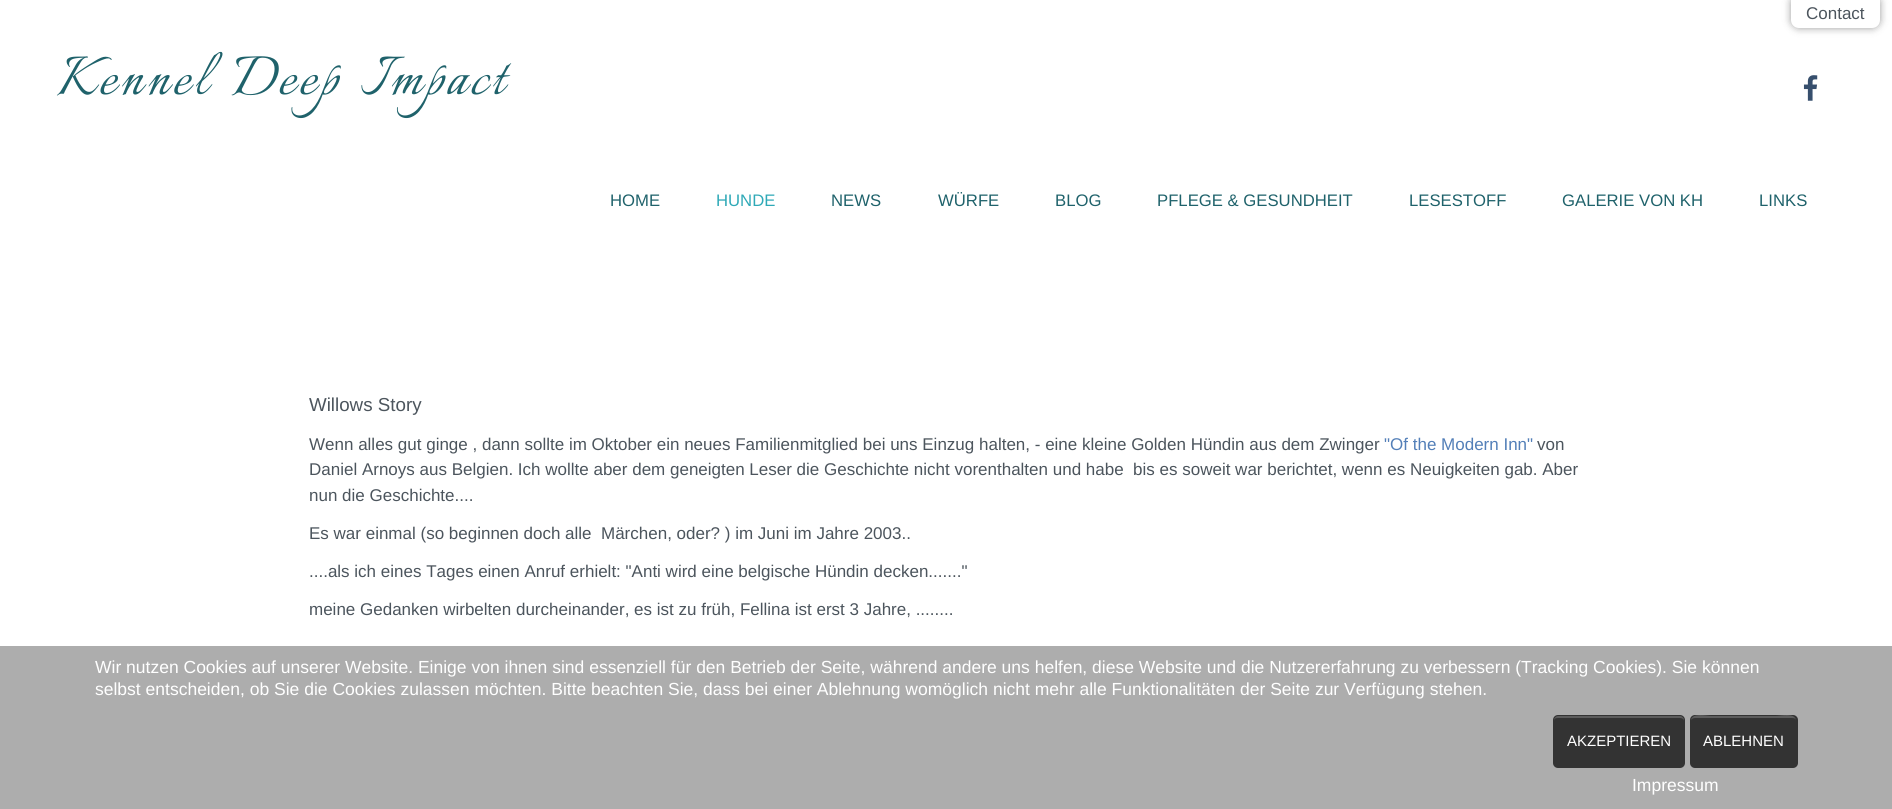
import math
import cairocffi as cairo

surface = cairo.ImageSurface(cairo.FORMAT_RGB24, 1892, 809)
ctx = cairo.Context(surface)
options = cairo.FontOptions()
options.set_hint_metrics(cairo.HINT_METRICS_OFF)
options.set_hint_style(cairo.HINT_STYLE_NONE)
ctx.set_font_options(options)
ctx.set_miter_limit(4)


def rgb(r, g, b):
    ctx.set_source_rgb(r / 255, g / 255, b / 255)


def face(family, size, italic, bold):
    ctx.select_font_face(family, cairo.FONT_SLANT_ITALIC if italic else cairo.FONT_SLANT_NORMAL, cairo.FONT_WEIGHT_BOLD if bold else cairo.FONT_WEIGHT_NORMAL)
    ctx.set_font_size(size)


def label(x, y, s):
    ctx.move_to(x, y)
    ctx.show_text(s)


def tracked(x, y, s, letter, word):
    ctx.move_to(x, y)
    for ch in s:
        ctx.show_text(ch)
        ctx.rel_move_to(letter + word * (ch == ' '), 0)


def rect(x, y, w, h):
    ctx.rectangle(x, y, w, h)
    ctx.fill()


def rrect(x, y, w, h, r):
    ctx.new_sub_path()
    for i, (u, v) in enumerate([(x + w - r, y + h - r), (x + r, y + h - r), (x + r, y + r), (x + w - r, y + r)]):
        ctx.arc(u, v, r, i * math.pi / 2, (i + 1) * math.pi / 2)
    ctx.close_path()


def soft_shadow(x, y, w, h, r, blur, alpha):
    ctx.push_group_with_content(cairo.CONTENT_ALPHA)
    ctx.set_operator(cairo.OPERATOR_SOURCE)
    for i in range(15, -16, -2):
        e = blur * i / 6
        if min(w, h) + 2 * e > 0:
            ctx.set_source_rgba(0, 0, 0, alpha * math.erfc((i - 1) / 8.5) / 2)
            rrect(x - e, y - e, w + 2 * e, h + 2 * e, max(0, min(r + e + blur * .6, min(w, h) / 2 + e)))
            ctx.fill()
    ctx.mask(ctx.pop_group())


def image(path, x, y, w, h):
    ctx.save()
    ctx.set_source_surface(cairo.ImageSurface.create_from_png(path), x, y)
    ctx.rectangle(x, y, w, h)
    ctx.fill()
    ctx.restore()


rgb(255, 255, 255)
ctx.paint()
rgb(0, 0, 0)
soft_shadow(1791, -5, 89, 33, 8, 4, 0.4)
rgb(255, 255, 255)
ctx.new_path()
ctx.move_to(1791, -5)
ctx.line_to(1880, -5)
ctx.line_to(1880, 20)
ctx.curve_to(1880, 24.5, 1876.5, 28, 1872, 28)
ctx.line_to(1799, 28)
ctx.curve_to(1794.5, 28, 1791, 24.5, 1791, 20)
ctx.close_path()
ctx.fill()
face('Liberation Sans', 17, 0, 0)
rgb(76, 85, 93)
label(1806, 19, 'Contact')
face('Italianno', 68.75, 0, 0)
rgb(31, 98, 107)
tracked(57, 94, 'Kennel Deep Impact', 3.75, 4)
image('image0.png', 1803, 75, 15, 26)
face('Liberation Sans', 16.7, 0, 0)
label(610, 206, 'HOME')
rgb(47, 169, 183)
label(716, 206, 'HUNDE')
rgb(31, 98, 107)
label(831, 206, 'NEWS')
label(938, 206, 'WÜRFE')
label(1055, 206, 'BLOG')
label(1157, 206, 'PFLEGE & GESUNDHEIT')
label(1409, 206, 'LESESTOFF')
label(1562, 206, 'GALERIE VON KH')
label(1759, 206, 'LINKS')
face('Liberation Sans', 18.75, 0, 0)
rgb(76, 85, 93)
label(309, 411, 'Willows Story')
face('Liberation Sans', 17, 0, 0)
label(309, 450, 'Wenn alles gut ginge , dann sollte im Oktober ein neues Familienmitglied bei uns Einzug halten, - eine kleine Golden Hündin aus dem Zwinger')
rgb(83, 127, 184)
label(1384, 450, '"Of the Modern Inn"')
rgb(76, 85, 93)
label(1537, 450, 'von')
label(309, 475, 'Daniel Arnoys aus Belgien. Ich wollte aber dem geneigten Leser die Geschichte nicht vorenthalten und habe  bis es soweit war berichtet, wenn es Neuigkeiten gab. Aber')
label(309, 501, 'nun die Geschichte....')
label(309, 539, 'Es war einmal (so beginnen doch alle  Märchen, oder? ) im Juni im Jahre 2003..')
label(309, 577, '....als ich eines Tages einen Anruf erhielt: "Anti wird eine belgische Hündin decken......."')
label(309, 615, 'meine Gedanken wirbelten durcheinander, es ist zu früh, Fellina ist erst 3 Jahre, ........')
rgb(173, 173, 173)
rect(0, 646, 1892, 163)
face('Liberation Sans', 17.5, 0, 0)
rgb(255, 255, 255)
label(95, 673, 'Wir nutzen Cookies auf unserer Website. Einige von ihnen sind essenziell für den Betrieb der Seite, während andere uns helfen, diese Website und die Nutzererfahrung zu verbessern (Tracking Cookies). Sie können')
label(95, 695, 'selbst entscheiden, ob Sie die Cookies zulassen möchten. Bitte beachten Sie, dass bei einer Ablehnung womöglich nicht mehr alle Funktionalitäten der Seite zur Verfügung stehen.')
rgb(51, 51, 51)
rrect(1553, 715, 132, 53, 5)
ctx.fill()
rgb(92, 92, 92)
ctx.new_path()
ctx.move_to(1558, 718)
ctx.line_to(1680, 718)
ctx.curve_to(1682, 718, 1684, 719, 1684, 721)
ctx.line_to(1684, 720)
ctx.curve_to(1684, 718, 1682, 716, 1680, 716)
ctx.line_to(1558, 716)
ctx.curve_to(1556, 716, 1554, 718, 1554, 720)
ctx.line_to(1554, 721)
ctx.curve_to(1554, 719, 1555, 718, 1558, 718)
ctx.close_path()
ctx.fill()
face('Liberation Sans', 15, 0, 0)
rgb(255, 255, 255)
label(1567, 746, 'AKZEPTIEREN')
rgb(51, 51, 51)
rrect(1690, 715, 108, 53, 5)
ctx.fill()
rgb(92, 92, 92)
ctx.new_path()
ctx.move_to(1695, 718)
ctx.line_to(1792, 718)
ctx.curve_to(1795, 718, 1796, 719, 1796, 721)
ctx.curve_to(1796, 712, 1780, 716, 1776, 716)
ctx.line_to(1711, 716)
ctx.curve_to(1707, 716, 1691, 712, 1691, 721)
ctx.curve_to(1691, 719, 1693, 718, 1695, 718)
ctx.close_path()
ctx.fill()
rgb(255, 255, 255)
label(1703, 746, 'ABLEHNEN')
face('Liberation Sans', 17.5, 0, 0)
label(1632, 791, 'Impressum')
surface.write_to_png('render.png')
